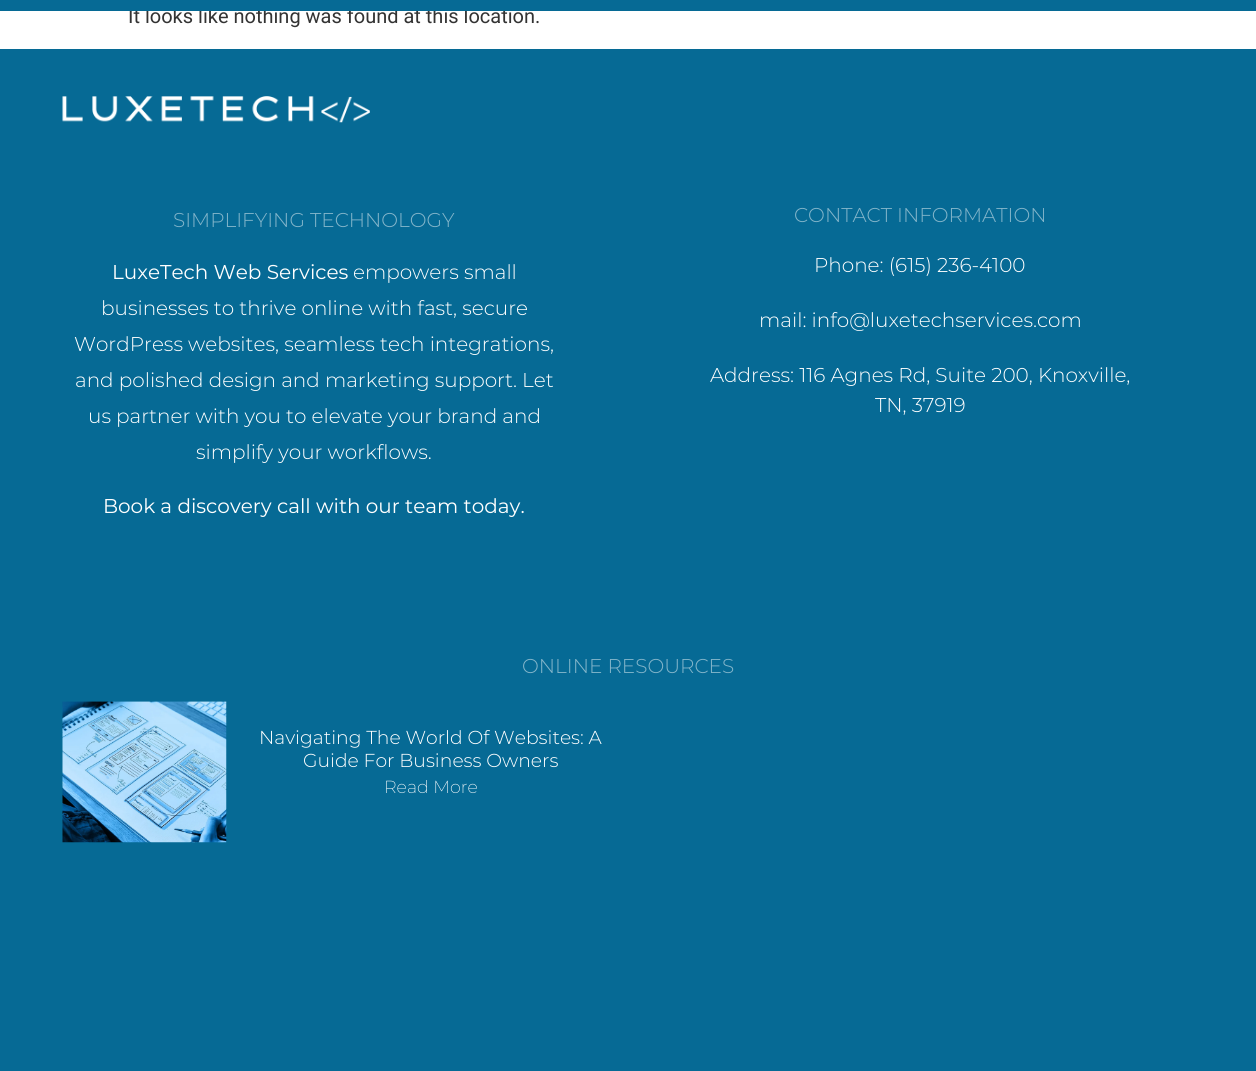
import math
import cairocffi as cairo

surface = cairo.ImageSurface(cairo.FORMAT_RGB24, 1256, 1071)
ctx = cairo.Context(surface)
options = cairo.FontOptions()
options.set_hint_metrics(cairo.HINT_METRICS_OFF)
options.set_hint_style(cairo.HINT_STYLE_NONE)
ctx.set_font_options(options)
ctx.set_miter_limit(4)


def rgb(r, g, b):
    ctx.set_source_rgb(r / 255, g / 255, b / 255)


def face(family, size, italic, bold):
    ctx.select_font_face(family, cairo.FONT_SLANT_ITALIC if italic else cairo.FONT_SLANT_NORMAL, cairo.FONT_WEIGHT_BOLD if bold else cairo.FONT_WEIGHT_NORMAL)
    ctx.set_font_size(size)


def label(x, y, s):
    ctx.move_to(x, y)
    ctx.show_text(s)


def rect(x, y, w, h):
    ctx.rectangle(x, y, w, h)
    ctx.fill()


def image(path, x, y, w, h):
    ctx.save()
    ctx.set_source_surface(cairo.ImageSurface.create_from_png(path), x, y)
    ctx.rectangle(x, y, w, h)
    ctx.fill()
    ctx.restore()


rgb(255, 255, 255)
ctx.paint()
face('Roboto', 20, 0, 0)
rgb(51, 51, 51)
label(128, 23, 'It looks like nothing was found at this location.')
rgb(6, 106, 149)
rect(0, 0, 1256, 11)
rect(0, 49, 1256, 1022)
image('image0.png', 62, 96, 308, 27)
face('Montserrat Light', 20, 0, 0)
rgb(131, 181, 202)
label(173, 227, 'SIMPLIFYING TECHNOLOGY')
face('Montserrat', 20, 0, 0)
rgb(255, 255, 255)
label(112, 279, 'LuxeTech Web Services')
face('Montserrat Light', 20, 0, 0)
label(353, 279, 'empowers small')
label(101, 315, 'businesses to thrive online with fast, secure')
label(74, 351, 'WordPress websites, seamless tech integrations,')
label(75, 387, 'and polished design and marketing support. Let')
label(88, 423, 'us partner with you to elevate your brand and')
label(196, 459, 'simplify your workflows.')
face('Montserrat', 20, 0, 0)
label(103, 513, 'Book a discovery call with our team today.')
face('Montserrat Light', 20, 0, 0)
rgb(131, 181, 202)
label(794, 222, 'CONTACT INFORMATION')
rgb(255, 255, 255)
label(814, 272, 'Phone: (615) 236-4100')
label(759, 327, 'mail: info@luxetechservices.com')
label(710, 382, 'Address: 116 Agnes Rd, Suite 200, Knoxville,')
label(875, 412, 'TN, 37919')
rgb(131, 181, 202)
label(522, 673, 'ONLINE RESOURCES')
image('image1.png', 62, 701, 165, 142)
face('Montserrat Light', 18.75, 0, 0)
rgb(255, 255, 255)
label(259, 744, 'Navigating The World Of Websites: A')
label(303, 767, 'Guide For Business Owners')
face('Montserrat ExtraLight', 17.5, 0, 0)
label(384, 793, 'Read More')
surface.write_to_png('render.png')
